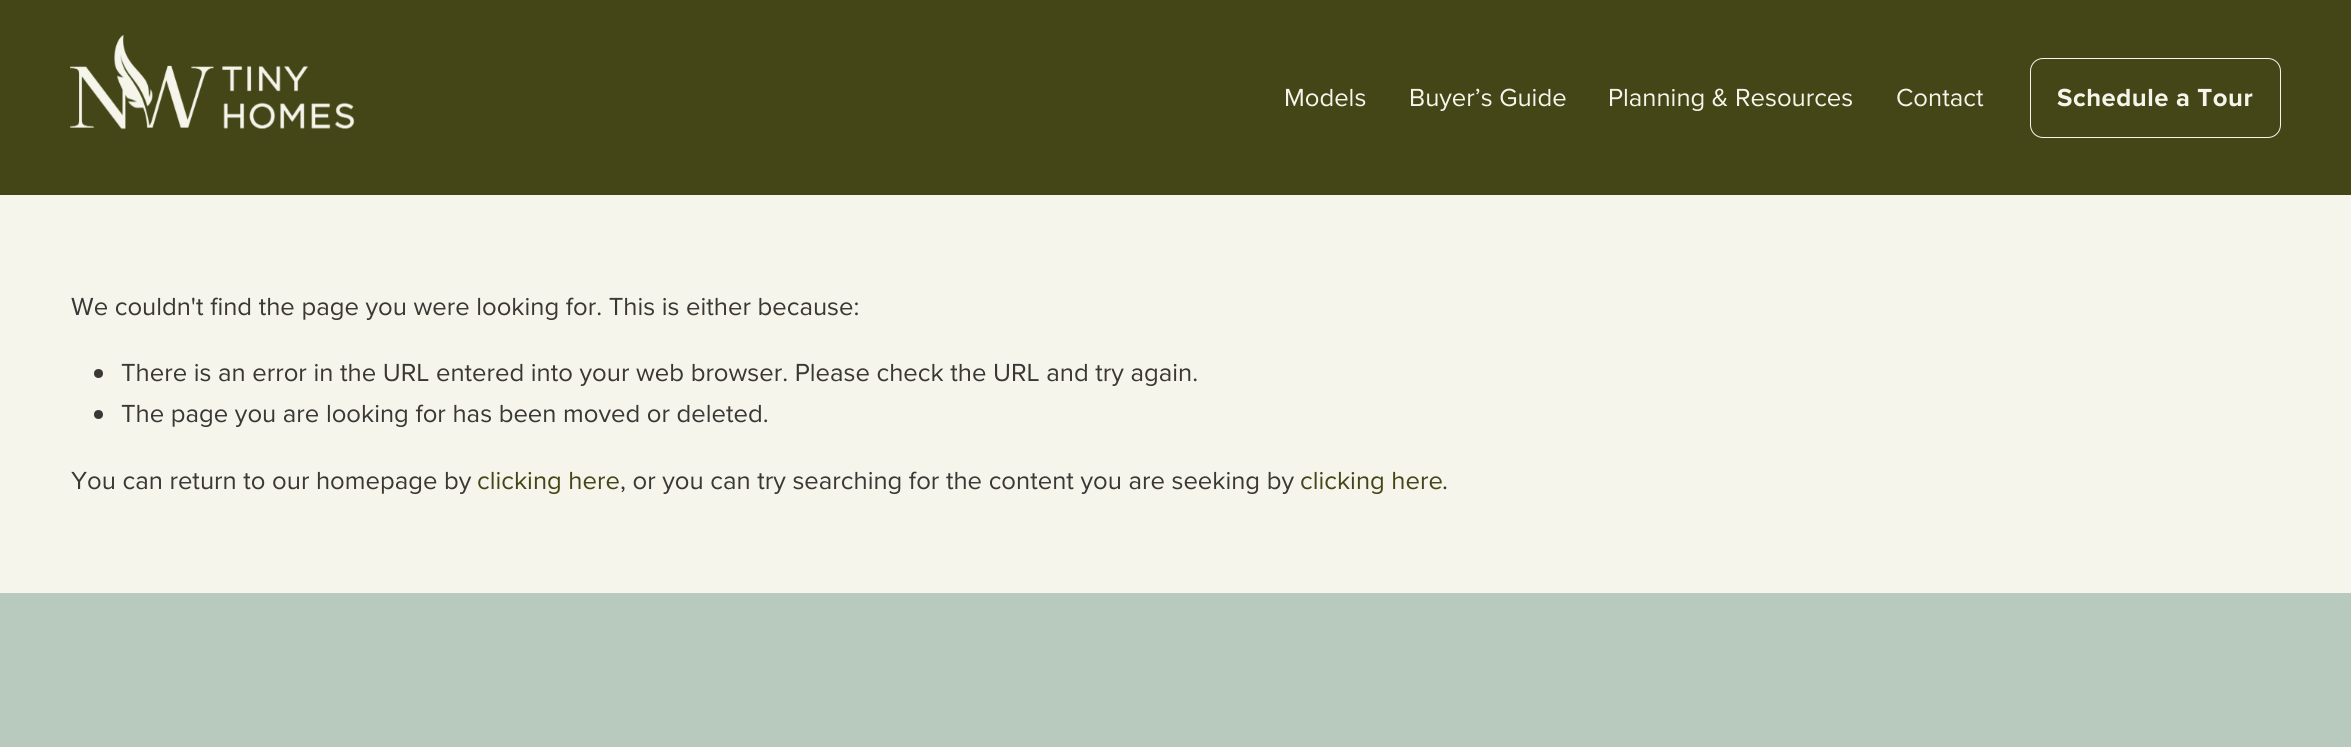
import math
import cairocffi as cairo

surface = cairo.ImageSurface(cairo.FORMAT_RGB24, 2351, 747)
ctx = cairo.Context(surface)
options = cairo.FontOptions()
options.set_hint_metrics(cairo.HINT_METRICS_OFF)
options.set_hint_style(cairo.HINT_STYLE_NONE)
ctx.set_font_options(options)
ctx.set_miter_limit(4)


def rgb(r, g, b):
    ctx.set_source_rgb(r / 255, g / 255, b / 255)


def face(family, size, italic, bold):
    ctx.select_font_face(family, cairo.FONT_SLANT_ITALIC if italic else cairo.FONT_SLANT_NORMAL, cairo.FONT_WEIGHT_BOLD if bold else cairo.FONT_WEIGHT_NORMAL)
    ctx.set_font_size(size)


def label(x, y, s):
    ctx.move_to(x, y)
    ctx.show_text(s)


def tracked(x, y, s, letter, word):
    ctx.move_to(x, y)
    for ch in s:
        ctx.show_text(ch)
        ctx.rel_move_to(letter + word * (ch == ' '), 0)


def rect(x, y, w, h):
    ctx.rectangle(x, y, w, h)
    ctx.fill()


def rrect(x, y, w, h, r):
    ctx.new_sub_path()
    for i, (u, v) in enumerate([(x + w - r, y + h - r), (x + r, y + h - r), (x + r, y + r), (x + w - r, y + r)]):
        ctx.arc(u, v, r, i * math.pi / 2, (i + 1) * math.pi / 2)
    ctx.close_path()


def image(path, x, y, w, h):
    ctx.save()
    ctx.set_source_surface(cairo.ImageSurface.create_from_png(path), x, y)
    ctx.rectangle(x, y, w, h)
    ctx.fill()
    ctx.restore()


rgb(245, 245, 235)
ctx.paint()
rgb(68, 70, 23)
rect(0, 0, 2351, 195)
image('image0.png', 70, 35, 285, 95)
face('Proxima Nova', 25.65, 0, 0)
rgb(245, 245, 235)
label(1284, 106, 'Models')
label(1409, 106, 'Buyer’s Guide')
label(1608, 106, 'Planning & Resources')
label(1896, 106, 'Contact')
rrect(2030.5, 58.5, 250, 79, 12.5)
ctx.set_line_width(1)
ctx.stroke()
face('Proxima Nova', 25.65, 0, 1)
tracked(2057, 106, 'Schedule a Tour', 0.5, 0)
face('Proxima Nova', 25.65, 0, 0)
rgb(58, 55, 52)
label(71, 315, 'We couldn\'t find the page you were looking for. This is either because:')
ctx.new_path()
ctx.arc(98.5, 373.5, 4.5, 0, 2 * math.pi)
ctx.fill()
label(121, 381, 'There is an error in the URL entered into your web browser. Please check the URL and try again.')
ctx.new_path()
ctx.arc(98.5, 414.5, 4.5, 0, 2 * math.pi)
ctx.fill()
label(121, 422, 'The page you are looking for has been moved or deleted.')
label(71, 489, 'You can return to our homepage by')
rgb(68, 70, 23)
label(477, 489, 'clicking here')
rgb(58, 55, 52)
label(620, 489, ', or you can try searching for the content you are seeking by')
rgb(68, 70, 23)
label(1300, 489, 'clicking here')
rgb(58, 55, 52)
label(1442, 489, '.')
rgb(184, 202, 190)
rect(0, 593, 2351, 154)
surface.write_to_png('render.png')
